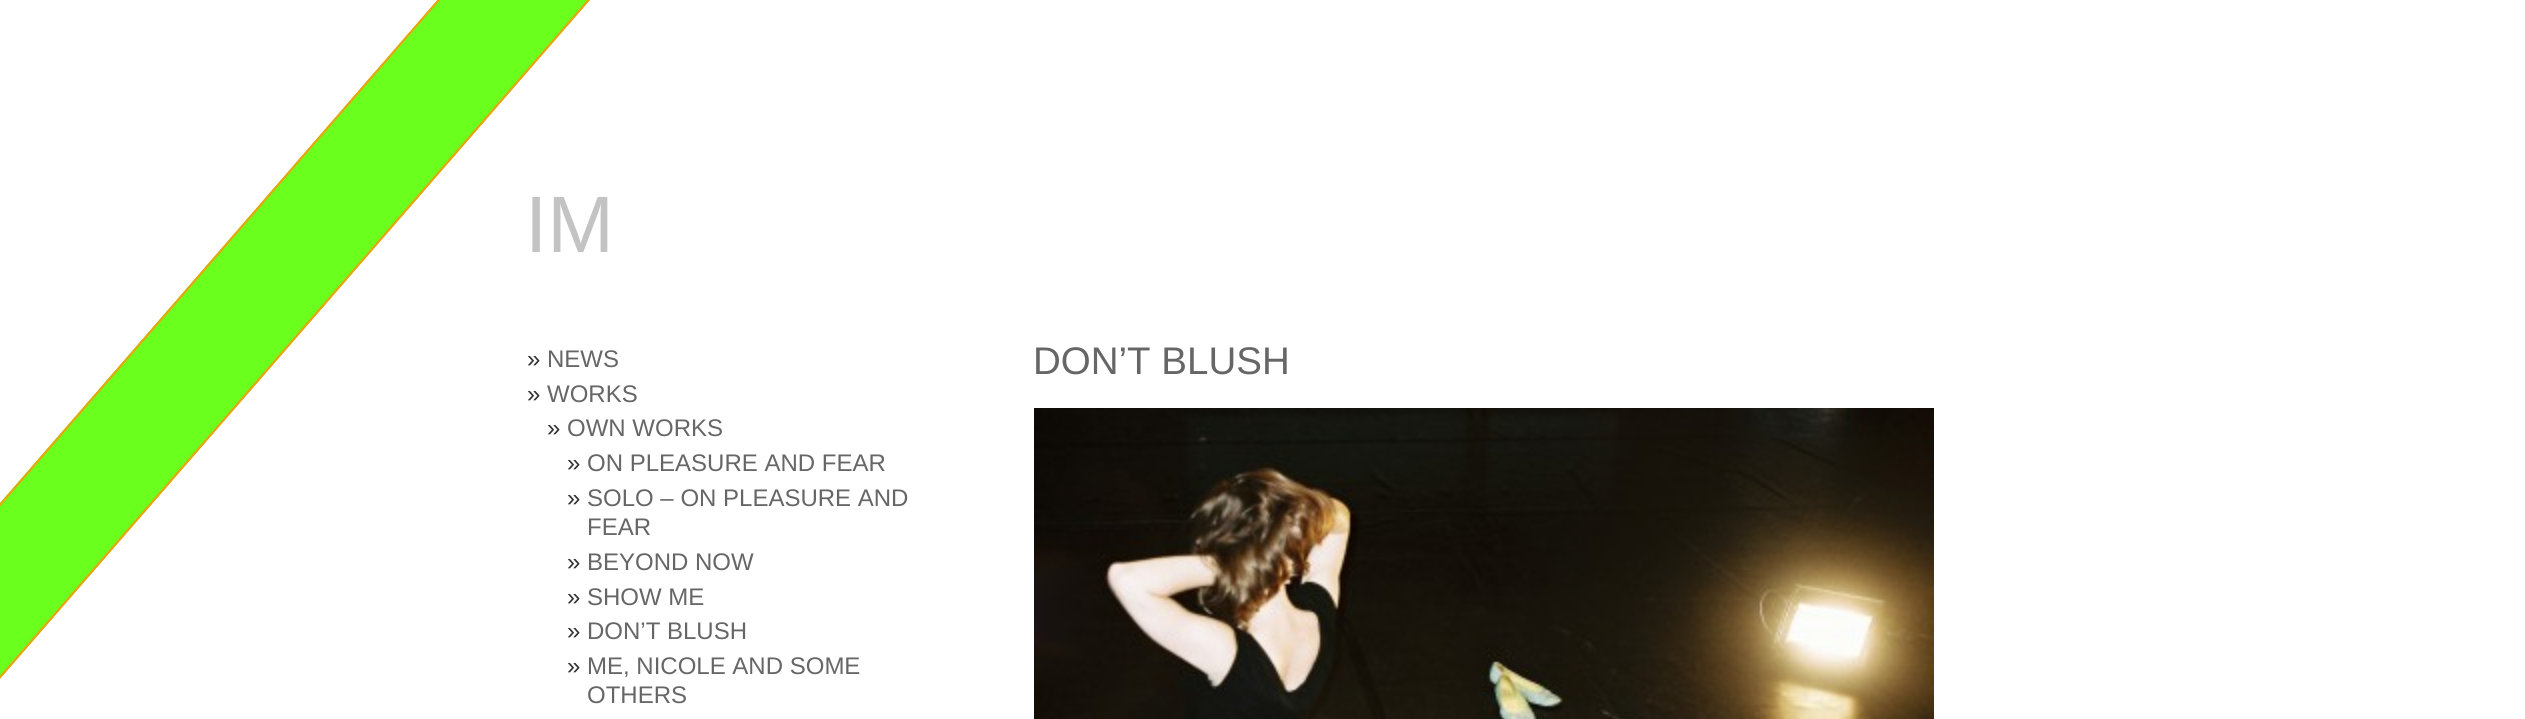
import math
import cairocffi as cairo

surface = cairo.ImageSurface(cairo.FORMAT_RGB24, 2525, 719)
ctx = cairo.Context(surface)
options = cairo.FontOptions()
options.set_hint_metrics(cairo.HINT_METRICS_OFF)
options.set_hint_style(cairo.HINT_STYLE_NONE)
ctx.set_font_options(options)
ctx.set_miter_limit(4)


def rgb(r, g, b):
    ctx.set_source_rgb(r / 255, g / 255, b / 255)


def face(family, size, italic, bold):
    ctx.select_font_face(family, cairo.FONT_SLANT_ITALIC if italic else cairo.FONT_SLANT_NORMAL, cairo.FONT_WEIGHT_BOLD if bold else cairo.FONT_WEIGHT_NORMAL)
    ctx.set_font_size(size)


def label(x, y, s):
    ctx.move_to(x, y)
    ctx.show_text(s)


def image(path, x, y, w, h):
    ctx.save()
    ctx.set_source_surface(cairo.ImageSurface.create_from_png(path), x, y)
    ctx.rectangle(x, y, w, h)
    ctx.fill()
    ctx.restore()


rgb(255, 255, 255)
ctx.paint()
face('Liberation Sans', 80, 0, 0)
rgb(195, 195, 195)
label(525, 252, 'IM')
face('Liberation Sans', 24, 0, 0)
rgb(51, 51, 51)
label(527, 367, '»')
rgb(102, 102, 102)
label(547, 367, 'NEWS')
rgb(51, 51, 51)
label(527, 402, '»')
rgb(102, 102, 102)
label(547, 402, 'WORKS')
rgb(51, 51, 51)
label(547, 436, '»')
rgb(102, 102, 102)
label(567, 436, 'OWN WORKS')
rgb(51, 51, 51)
label(567, 471, '»')
rgb(102, 102, 102)
label(587, 471, 'ON PLEASURE AND FEAR')
rgb(51, 51, 51)
label(567, 506, '»')
rgb(102, 102, 102)
label(587, 506, 'SOLO – ON PLEASURE AND')
label(587, 535, 'FEAR')
rgb(51, 51, 51)
label(567, 570, '»')
rgb(102, 102, 102)
label(587, 570, 'BEYOND NOW')
rgb(51, 51, 51)
label(567, 605, '»')
rgb(102, 102, 102)
label(587, 605, 'SHOW ME')
rgb(51, 51, 51)
label(567, 639, '»')
rgb(102, 102, 102)
label(587, 639, 'DON’T BLUSH')
rgb(51, 51, 51)
label(567, 674, '»')
rgb(102, 102, 102)
label(587, 674, 'ME, NICOLE AND SOME')
rgb(141, 255, 81)
ctx.new_path()
ctx.move_to(-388, 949)
ctx.line_to(992, -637)
ctx.line_to(1078, -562)
ctx.line_to(-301, 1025)
ctx.close_path()
ctx.fill()
ctx.new_path()
ctx.move_to(-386.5, 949.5)
ctx.line_to(991.5, -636)
ctx.line_to(1077, -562)
ctx.line_to(-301, 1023.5)
ctx.close_path()
ctx.set_source_rgba(0.961, 0.616, 0.071, 0.9)
ctx.stroke()
ctx.set_source_rgba(0.361, 1, 0.024, 0.7)
ctx.new_path()
ctx.move_to(-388, 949)
ctx.line_to(992, -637)
ctx.line_to(1078, -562)
ctx.line_to(-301, 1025)
ctx.close_path()
ctx.fill()
ctx.new_path()
ctx.move_to(-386.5, 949.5)
ctx.line_to(991.5, -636)
ctx.line_to(1077, -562)
ctx.line_to(-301, 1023.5)
ctx.close_path()
ctx.set_source_rgba(0.961, 0.616, 0.071, 0.9)
ctx.stroke()
rgb(102, 102, 102)
label(587, 703, 'OTHERS')
face('Liberation Sans', 38.5, 0, 0)
label(1033, 374, 'DON’T BLUSH')
image('image0.png', 1034, 408, 900, 311)
surface.write_to_png('render.png')
